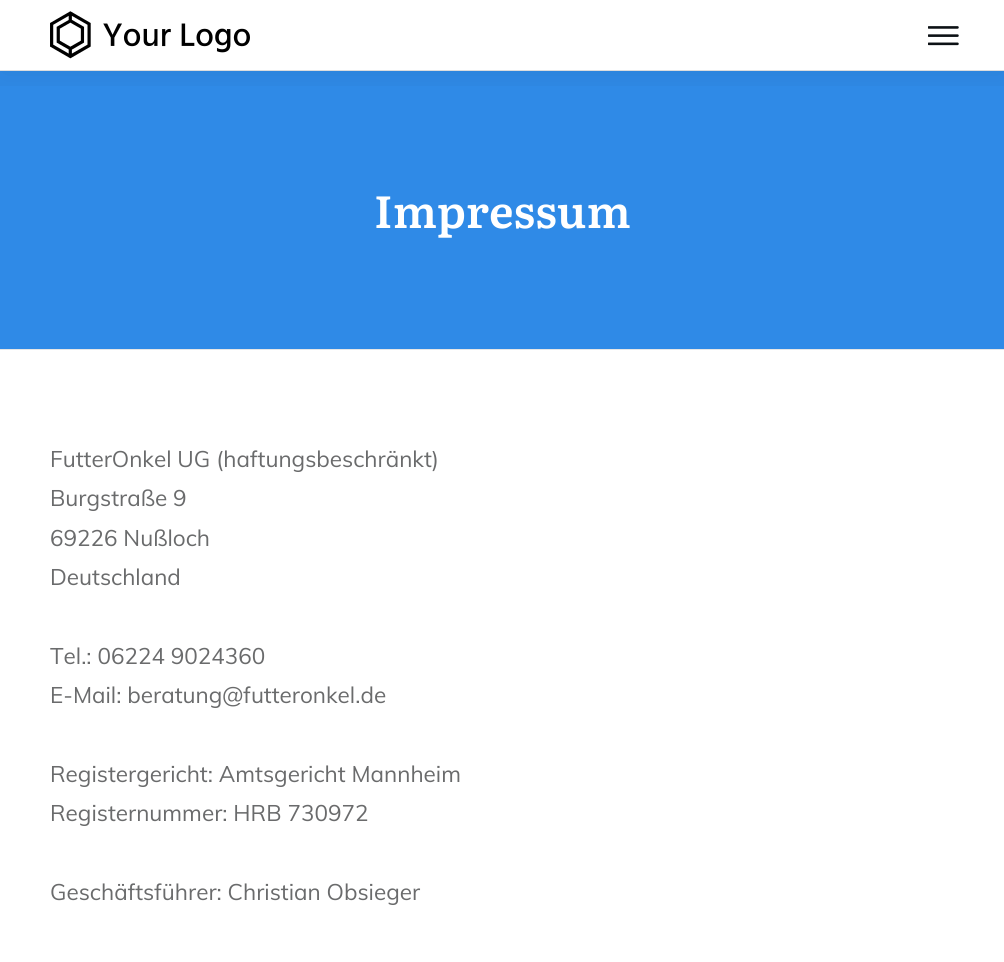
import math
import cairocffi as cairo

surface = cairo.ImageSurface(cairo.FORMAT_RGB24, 1004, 962)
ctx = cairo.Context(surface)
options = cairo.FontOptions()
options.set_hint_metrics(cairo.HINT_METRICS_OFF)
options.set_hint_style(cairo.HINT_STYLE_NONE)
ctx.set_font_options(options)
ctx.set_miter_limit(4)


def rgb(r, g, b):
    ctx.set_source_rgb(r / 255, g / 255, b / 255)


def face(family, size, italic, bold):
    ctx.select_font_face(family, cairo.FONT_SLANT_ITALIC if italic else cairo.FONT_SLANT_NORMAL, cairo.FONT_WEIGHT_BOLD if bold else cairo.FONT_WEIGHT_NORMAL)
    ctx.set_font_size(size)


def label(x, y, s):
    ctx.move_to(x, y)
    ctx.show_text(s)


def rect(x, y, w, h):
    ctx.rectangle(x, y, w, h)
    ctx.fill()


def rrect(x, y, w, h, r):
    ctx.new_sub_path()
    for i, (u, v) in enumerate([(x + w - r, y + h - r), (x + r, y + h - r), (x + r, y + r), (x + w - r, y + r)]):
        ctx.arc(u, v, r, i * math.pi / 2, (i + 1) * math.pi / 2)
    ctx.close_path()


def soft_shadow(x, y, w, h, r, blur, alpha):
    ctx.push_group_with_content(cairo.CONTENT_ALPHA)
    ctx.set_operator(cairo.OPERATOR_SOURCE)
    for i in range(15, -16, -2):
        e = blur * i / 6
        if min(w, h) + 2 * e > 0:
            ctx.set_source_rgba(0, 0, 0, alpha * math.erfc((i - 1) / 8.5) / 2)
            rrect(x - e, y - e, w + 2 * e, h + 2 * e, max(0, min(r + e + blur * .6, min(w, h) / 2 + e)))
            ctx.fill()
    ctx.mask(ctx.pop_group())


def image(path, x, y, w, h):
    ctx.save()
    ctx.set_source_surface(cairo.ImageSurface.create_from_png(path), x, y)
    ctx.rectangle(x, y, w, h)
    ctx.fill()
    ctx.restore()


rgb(255, 255, 255)
ctx.paint()
rgb(47, 138, 231)
rect(0, 71, 1004, 278)
rgb(230, 230, 230)
rect(0, 70, 1004, 1)
ctx.save()
ctx.rectangle(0, 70, 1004, 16)
ctx.clip()
rgb(0, 0, 0)
soft_shadow(0, 3, 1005, 70, 0, 19, 0.08)
ctx.restore()
image('image0.png', 50, 11, 200, 48)
image('image1.png', 928, 26, 31, 20)
rect(0, 349, 1004, 1)
face('Literata SemiBold', 45, 0, 0)
rgb(255, 255, 255)
label(374, 228, 'Impressum')
face('Muli', 22.5, 0, 0)
rgb(106, 107, 108)
label(50, 467, 'FutterOnkel UG (haftungsbeschränkt)')
label(50, 506, 'Burgstraße 9')
label(50, 546, '69226 Nußloch')
label(50, 585, 'Deutschland')
label(50, 664, 'Tel.: 06224 9024360')
label(50, 703, 'E-Mail: beratung@futteronkel.de')
label(50, 782, 'Registergericht: Amtsgericht Mannheim')
label(50, 821, 'Registernummer: HRB 730972')
label(50, 900, 'Geschäftsführer: Christian Obsieger')
surface.write_to_png('render.png')
